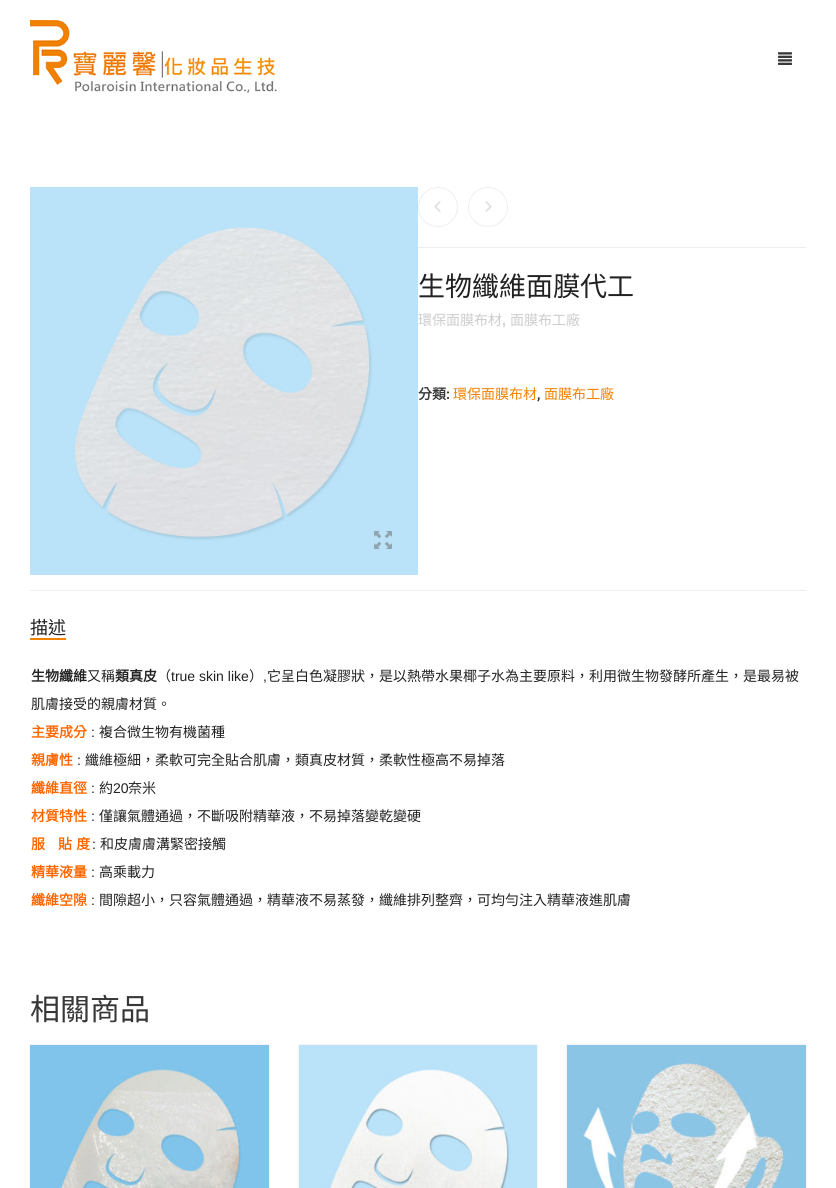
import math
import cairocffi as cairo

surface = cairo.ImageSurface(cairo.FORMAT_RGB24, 836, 1188)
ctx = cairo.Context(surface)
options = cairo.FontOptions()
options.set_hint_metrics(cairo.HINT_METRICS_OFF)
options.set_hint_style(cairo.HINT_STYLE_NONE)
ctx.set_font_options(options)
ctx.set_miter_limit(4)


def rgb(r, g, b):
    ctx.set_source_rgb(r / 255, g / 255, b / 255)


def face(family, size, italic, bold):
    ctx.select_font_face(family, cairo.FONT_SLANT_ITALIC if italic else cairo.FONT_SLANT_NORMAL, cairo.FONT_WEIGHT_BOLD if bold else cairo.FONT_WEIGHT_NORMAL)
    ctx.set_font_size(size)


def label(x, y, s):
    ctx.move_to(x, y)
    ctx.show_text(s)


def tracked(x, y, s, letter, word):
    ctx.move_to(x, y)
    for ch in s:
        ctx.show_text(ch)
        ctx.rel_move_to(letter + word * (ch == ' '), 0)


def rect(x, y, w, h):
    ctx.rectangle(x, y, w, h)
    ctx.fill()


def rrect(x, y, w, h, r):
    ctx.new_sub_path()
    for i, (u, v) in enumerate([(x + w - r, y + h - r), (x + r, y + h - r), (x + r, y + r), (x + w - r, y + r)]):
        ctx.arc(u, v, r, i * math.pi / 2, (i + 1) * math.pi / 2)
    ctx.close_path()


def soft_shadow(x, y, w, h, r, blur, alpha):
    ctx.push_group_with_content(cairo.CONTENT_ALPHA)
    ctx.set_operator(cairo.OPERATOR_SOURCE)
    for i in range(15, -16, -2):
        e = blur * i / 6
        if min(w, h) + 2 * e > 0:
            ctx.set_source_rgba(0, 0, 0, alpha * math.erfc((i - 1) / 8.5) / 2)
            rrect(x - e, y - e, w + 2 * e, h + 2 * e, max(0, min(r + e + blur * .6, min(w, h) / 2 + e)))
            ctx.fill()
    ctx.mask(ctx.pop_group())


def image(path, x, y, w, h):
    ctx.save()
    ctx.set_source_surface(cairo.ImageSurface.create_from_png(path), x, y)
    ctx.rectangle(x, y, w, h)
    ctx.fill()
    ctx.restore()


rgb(255, 255, 255)
ctx.paint()
image('image0.png', 30, 20, 247, 73)
image('image1.png', 778, 52, 14, 13)
image('image2.png', 30, 187, 388, 388)
image('image3.png', 374, 531, 18, 18)
rgb(238, 238, 238)
rect(418, 247, 388, 1)
ctx.arc(438, 207, 19.5, 0, 2 * math.pi)
ctx.set_line_width(1)
ctx.stroke()
image('image4.png', 434, 201, 7, 11)
ctx.arc(488, 207, 19.5, 0, 2 * math.pi)
ctx.stroke()
image('image5.png', 485, 201, 7, 11)
face('Noto Sans CJK TC', 27, 0, 0)
rgb(34, 34, 34)
label(418, 296, '生物纖維面膜代工')
face('Noto Sans CJK TC', 14, 0, 0)
rgb(204, 204, 204)
label(418, 325, '環保面膜布材')
face('Liberation Sans', 14, 0, 1)
label(502, 325, ',')
face('Noto Sans CJK TC', 14, 0, 0)
label(510, 325, '面膜布工廠')
face('Noto Sans CJK TC', 14, 0, 1)
rgb(55, 55, 55)
label(418, 399, '分類')
face('Roboto Condensed', 14, 0, 1)
label(446, 399, ':')
face('Noto Sans CJK TC', 14, 0, 0)
rgb(240, 130, 0)
label(453, 399, '環保面膜布材')
face('Roboto Condensed', 14, 0, 1)
rgb(55, 55, 55)
label(537, 399, ',')
face('Noto Sans CJK TC', 14, 0, 0)
rgb(240, 130, 0)
label(544, 399, '面膜布工廠')
rgb(238, 238, 238)
rect(30, 590, 776, 1)
face('Noto Sans CJK TC', 18, 0, 0)
rgb(34, 34, 34)
label(30, 634, '描述')
rgb(240, 130, 0)
rect(30, 638, 36, 2)
face('Noto Sans CJK TC', 14, 0, 1)
rgb(34, 34, 34)
label(31, 681, '生物纖維')
face('Noto Sans CJK TC', 14, 0, 0)
label(87, 681, '又稱')
face('Noto Sans CJK TC', 14, 0, 1)
label(115, 681, '類真皮')
face('Noto Sans CJK TC', 14, 0, 0)
label(157, 681, '（')
face('Liberation Sans', 14, 0, 0)
label(171, 681, 'true skin like')
face('Noto Sans CJK TC', 14, 0, 0)
label(249, 681, '）')
face('Liberation Sans', 14, 0, 0)
label(263, 681, ',')
face('Noto Sans CJK TC', 14, 0, 0)
label(267, 681, '它呈白色凝膠狀，是以熱帶水果椰子水為主要原料，利用微生物發酵所產生，是最易被')
label(31, 709, '肌膚接受的親膚材質。')
face('Noto Sans CJK TC', 14, 0, 1)
rgb(255, 102, 0)
label(31, 737, '主要成分')
face('Liberation Sans', 14, 0, 0)
rgb(34, 34, 34)
label(91, 737, ':')
face('Noto Sans CJK TC', 14, 0, 0)
label(99, 737, '複合微生物有機菌種')
face('Noto Sans CJK TC', 14, 0, 1)
rgb(255, 102, 0)
label(31, 765, '親膚性')
face('Liberation Sans', 14, 0, 0)
rgb(34, 34, 34)
label(77, 765, ':')
face('Noto Sans CJK TC', 14, 0, 0)
label(85, 765, '纖維極細，柔軟可完全貼合肌膚，類真皮材質，柔軟性極高不易掉落')
face('Noto Sans CJK TC', 14, 0, 1)
rgb(255, 102, 0)
label(31, 793, '纖維直徑')
face('Liberation Sans', 14, 0, 0)
rgb(34, 34, 34)
label(91, 793, ':')
face('Noto Sans CJK TC', 14, 0, 0)
label(99, 793, '約')
face('Liberation Sans', 14, 0, 0)
label(113, 793, '20')
face('Noto Sans CJK TC', 14, 0, 0)
label(128, 793, '奈米')
face('Noto Sans CJK TC', 14, 0, 1)
rgb(255, 102, 0)
label(31, 821, '材質特性')
face('Liberation Sans', 14, 0, 0)
rgb(34, 34, 34)
label(91, 821, ':')
face('Noto Sans CJK TC', 14, 0, 0)
label(99, 821, '僅讓氣體通過，不斷吸附精華液，不易掉落變乾變硬')
face('Noto Sans CJK TC', 14, 0, 1)
rgb(255, 102, 0)
label(31, 849, '服')
tracked(58, 849, '貼 度', 0, 1)
face('Liberation Sans', 14, 0, 0)
rgb(34, 34, 34)
label(92, 849, ':')
face('Noto Sans CJK TC', 14, 0, 0)
label(100, 849, '和皮膚膚溝緊密接觸')
face('Noto Sans CJK TC', 14, 0, 1)
rgb(255, 102, 0)
label(31, 877, '精華液量')
face('Liberation Sans', 14, 0, 0)
rgb(34, 34, 34)
label(91, 877, ':')
face('Noto Sans CJK TC', 14, 0, 0)
label(99, 877, '高乘載力')
face('Noto Sans CJK TC', 14, 0, 1)
rgb(255, 102, 0)
label(31, 905, '纖維空隙')
face('Liberation Sans', 14, 0, 0)
rgb(34, 34, 34)
label(91, 905, ':')
face('Noto Sans CJK TC', 14, 0, 0)
label(99, 905, '間隙超小，只容氣體通過，精華液不易蒸發，纖維排列整齊，可均勻注入精華液進肌膚')
face('Noto Sans CJK TC', 30, 0, 0)
rgb(55, 55, 55)
label(30, 1020, '相關商品')
rgb(204, 204, 204)
soft_shadow(30, 1045, 239, 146, 0, 1, 0.5)
image('image6.png', 30, 1045, 239, 143)
soft_shadow(299, 1045, 238, 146, 0, 1, 0.5)
image('image7.png', 299, 1045, 238, 143)
soft_shadow(567, 1045, 239, 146, 0, 1, 0.5)
image('image8.png', 567, 1045, 239, 143)
surface.write_to_png('render.png')
